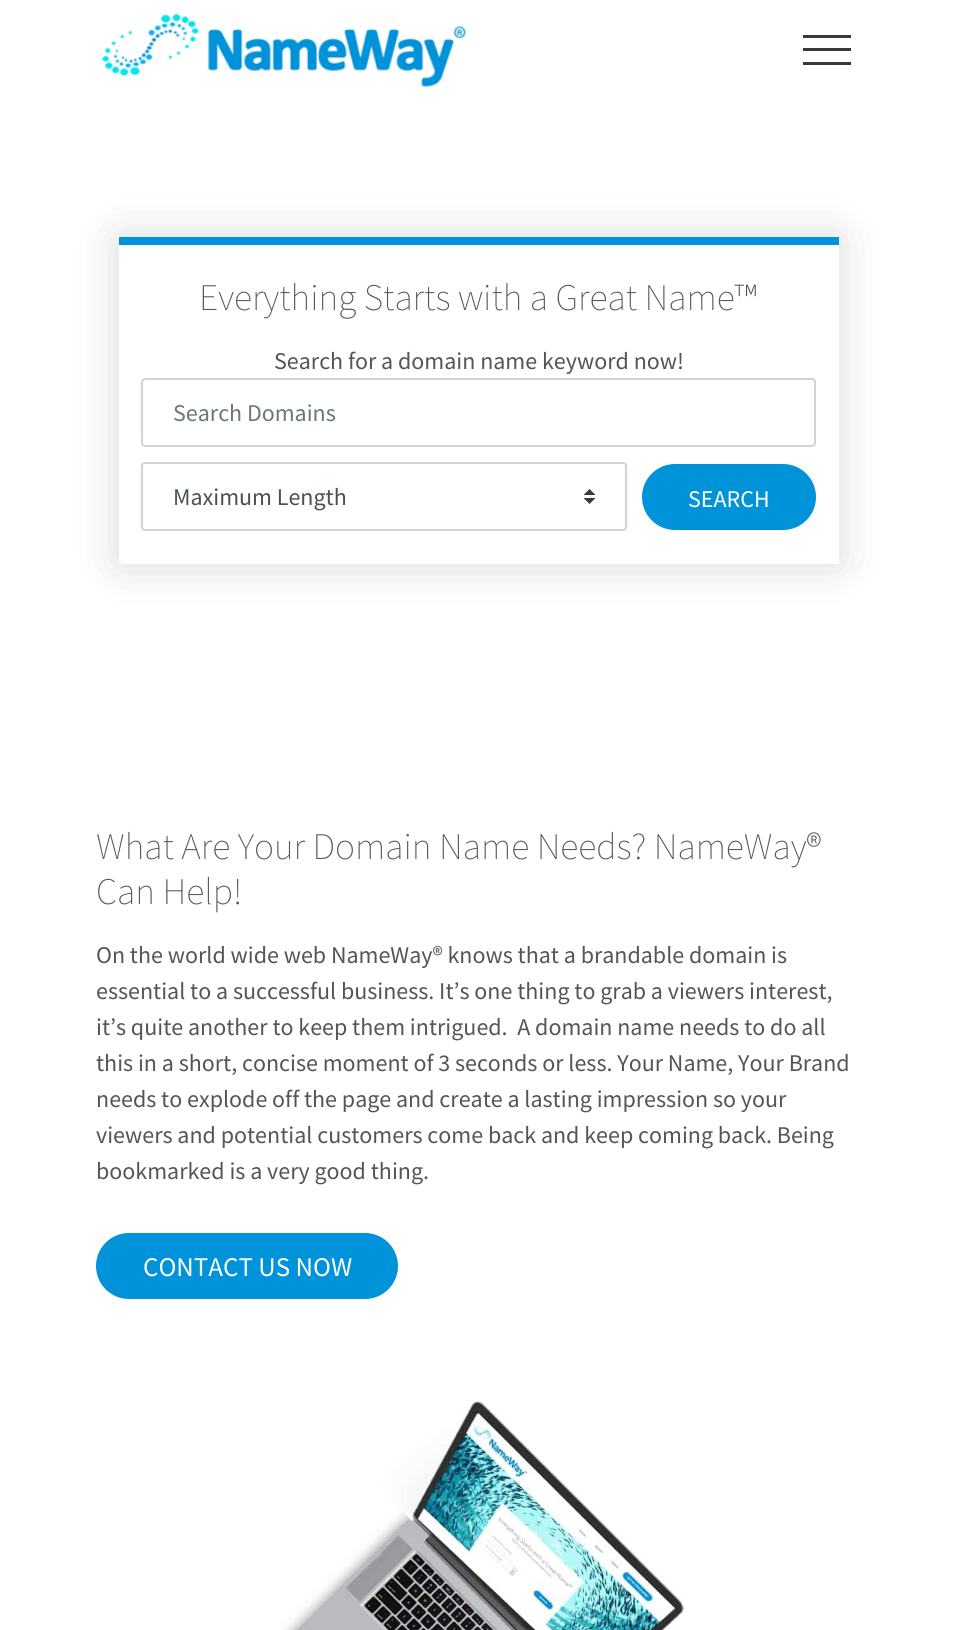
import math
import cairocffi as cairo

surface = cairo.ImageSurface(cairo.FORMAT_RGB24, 956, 1630)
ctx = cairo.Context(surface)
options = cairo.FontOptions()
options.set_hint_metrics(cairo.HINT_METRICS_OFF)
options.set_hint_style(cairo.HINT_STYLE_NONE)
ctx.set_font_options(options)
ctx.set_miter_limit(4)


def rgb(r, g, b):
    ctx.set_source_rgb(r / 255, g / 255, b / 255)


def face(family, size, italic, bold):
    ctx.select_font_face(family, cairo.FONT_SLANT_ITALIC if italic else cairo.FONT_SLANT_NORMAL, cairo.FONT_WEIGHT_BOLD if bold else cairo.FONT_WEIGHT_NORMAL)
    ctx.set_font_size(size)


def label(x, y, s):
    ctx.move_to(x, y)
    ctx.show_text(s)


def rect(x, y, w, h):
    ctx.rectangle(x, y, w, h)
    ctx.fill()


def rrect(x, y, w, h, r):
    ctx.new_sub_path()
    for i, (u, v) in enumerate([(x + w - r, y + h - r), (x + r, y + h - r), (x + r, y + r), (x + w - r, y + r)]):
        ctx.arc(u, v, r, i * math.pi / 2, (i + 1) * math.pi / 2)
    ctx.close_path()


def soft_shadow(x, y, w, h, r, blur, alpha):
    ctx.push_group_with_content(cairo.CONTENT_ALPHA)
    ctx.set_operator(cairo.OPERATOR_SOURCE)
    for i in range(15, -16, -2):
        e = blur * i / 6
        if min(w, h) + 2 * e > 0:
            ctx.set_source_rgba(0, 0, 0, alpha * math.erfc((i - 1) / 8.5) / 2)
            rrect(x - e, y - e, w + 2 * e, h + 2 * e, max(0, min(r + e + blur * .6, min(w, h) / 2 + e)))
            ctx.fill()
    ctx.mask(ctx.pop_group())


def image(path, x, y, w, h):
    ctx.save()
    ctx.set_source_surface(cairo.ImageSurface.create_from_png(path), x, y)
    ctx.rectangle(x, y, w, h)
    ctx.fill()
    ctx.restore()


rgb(255, 255, 255)
ctx.paint()
image('image0.png', 101, 13, 366, 75)
rgb(52, 58, 64)
rect(803, 35, 48, 3)
rect(803, 48, 48, 3)
rect(803, 62, 48, 3)
rgb(0, 0, 0)
soft_shadow(119, 237, 720, 327, 0, 22.5, 0.15)
rgb(255, 255, 255)
rect(119, 245, 720, 319)
rgb(0, 147, 217)
rect(119, 237, 720, 8)
face('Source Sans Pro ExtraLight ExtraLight', 37.5, 0, 0)
rgb(85, 85, 85)
label(199, 310, 'Everything Starts with a Great Name™')
face('Source Sans Pro', 24, 0, 0)
label(274, 369, 'Search for a domain name keyword now!')
rrect(142, 379, 673, 67, 3)
rgb(206, 212, 218)
ctx.stroke()
rgb(108, 117, 125)
label(173, 421, 'Search Domains')
image('image1.png', 584, 489, 12, 15)
rrect(142, 463, 484, 67, 3)
rgb(206, 212, 218)
ctx.stroke()
rgb(73, 80, 87)
label(173, 505, 'Maximum Length')
rgb(0, 147, 217)
rrect(643, 465, 172, 64, 32)
ctx.fill_preserve()
ctx.stroke()
rgb(255, 255, 255)
label(688, 507, 'SEARCH')
face('Source Sans Pro ExtraLight ExtraLight', 37.5, 0, 0)
rgb(85, 85, 85)
label(96, 859, 'What Are Your Domain Name Needs? NameWay®')
label(96, 904, 'Can Help!')
face('Source Sans Pro', 24, 0, 0)
label(96, 963, 'On the world wide web NameWay® knows that a brandable domain is')
label(96, 999, 'essential to a successful business. It’s one thing to grab a viewers interest,')
label(96, 1035, 'it’s quite another to keep them intrigued.  A domain name needs to do all')
label(96, 1071, 'this in a short, concise moment of 3 seconds or less. Your Name, Your Brand')
label(96, 1107, 'needs to explode off the page and create a lasting impression so your')
label(96, 1143, 'viewers and potential customers come back and keep coming back. Being')
label(96, 1179, 'bookmarked is a very good thing.')
rgb(0, 147, 217)
rrect(97, 1234, 300, 64, 32)
ctx.fill_preserve()
ctx.stroke()
face('Source Sans Pro', 27, 0, 0)
rgb(255, 255, 255)
label(143, 1276, 'CONTACT US NOW')
image('image2.png', 282, 1400, 403, 230)
surface.write_to_png('render.png')
